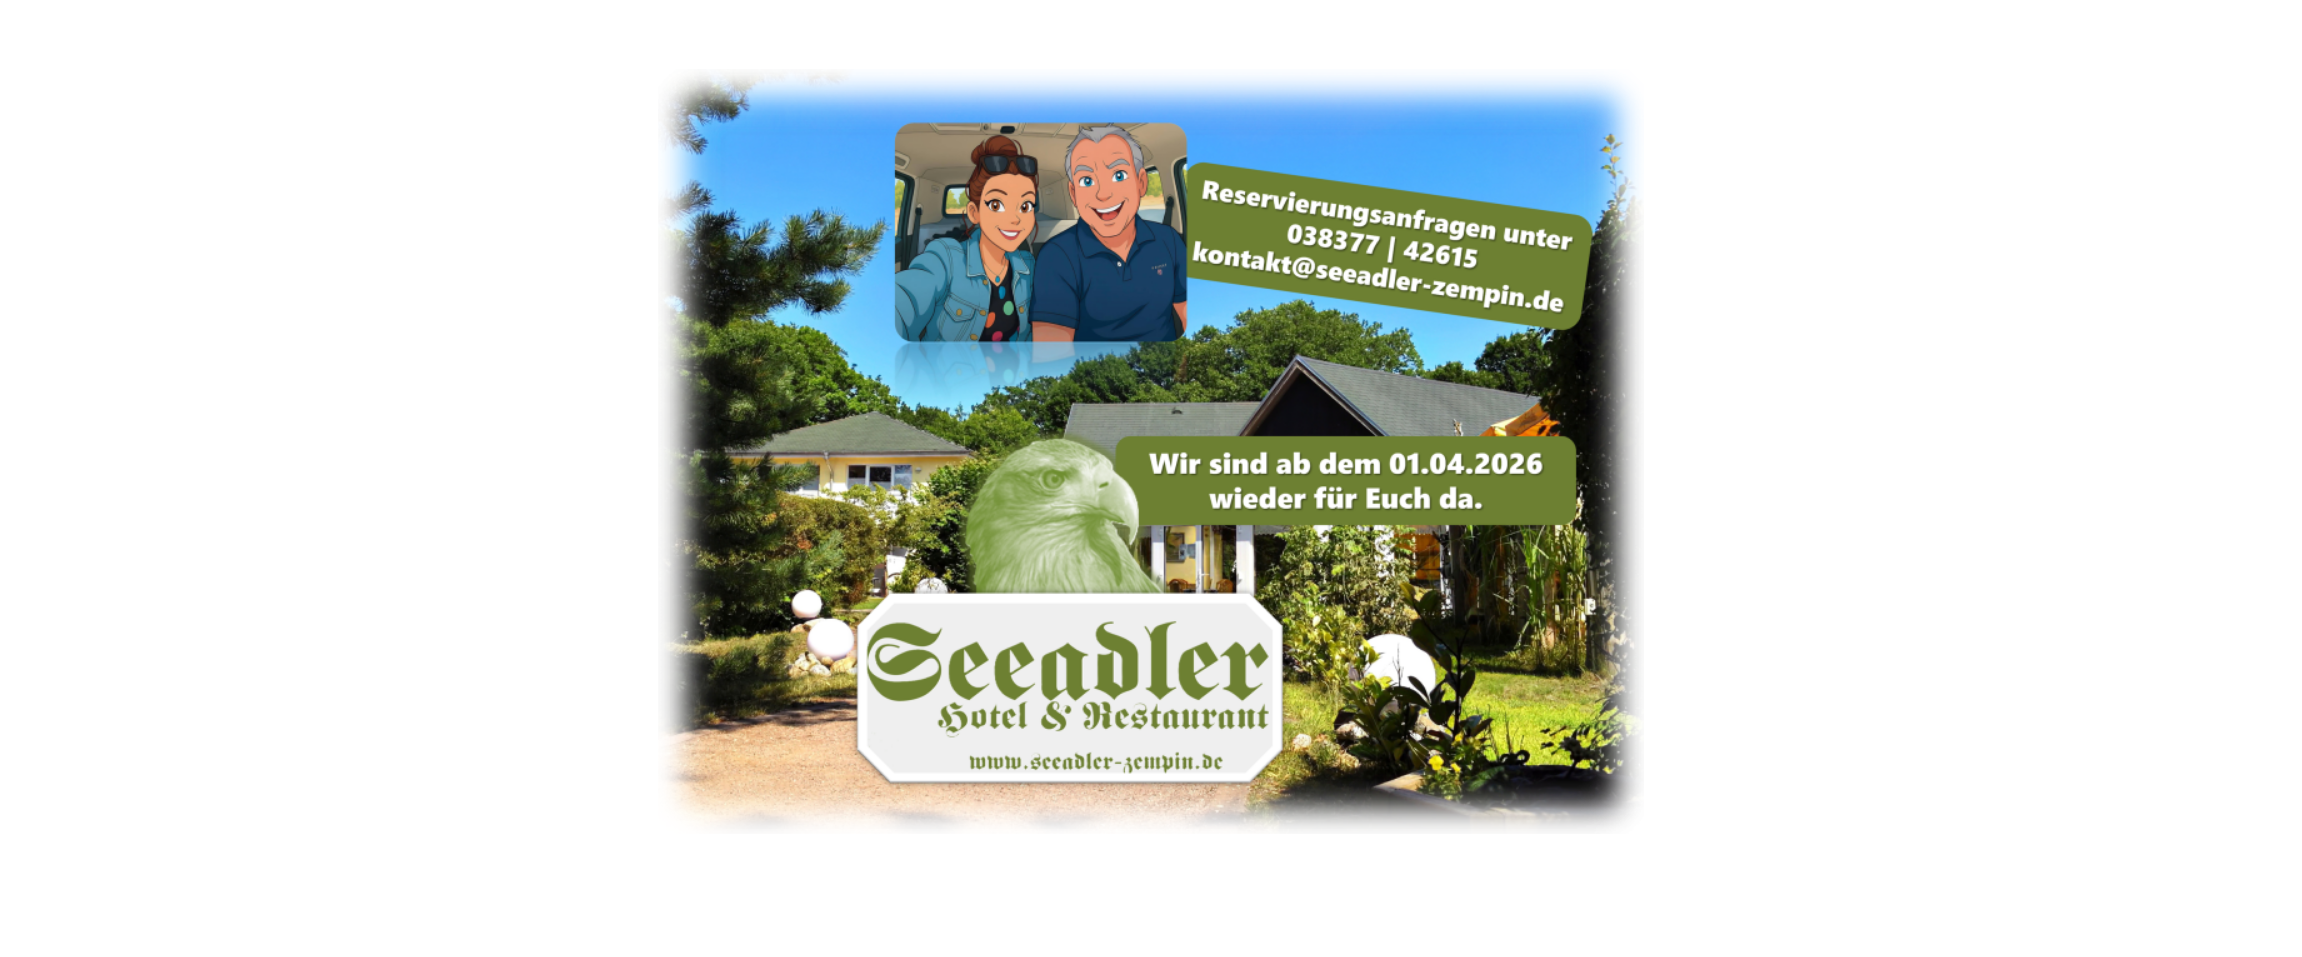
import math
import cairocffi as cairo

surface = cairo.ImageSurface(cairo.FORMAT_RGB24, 2302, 957)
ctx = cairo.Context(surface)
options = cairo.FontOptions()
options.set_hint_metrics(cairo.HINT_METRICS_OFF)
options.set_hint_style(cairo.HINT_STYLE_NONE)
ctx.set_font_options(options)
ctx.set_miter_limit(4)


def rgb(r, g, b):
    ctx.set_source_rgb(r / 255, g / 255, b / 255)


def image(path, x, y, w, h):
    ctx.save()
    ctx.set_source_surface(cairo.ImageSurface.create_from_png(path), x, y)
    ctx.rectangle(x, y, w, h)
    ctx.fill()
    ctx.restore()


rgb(255, 255, 255)
ctx.paint()
image('image0.png', 658, 69, 986, 765)
surface.write_to_png('render.png')
